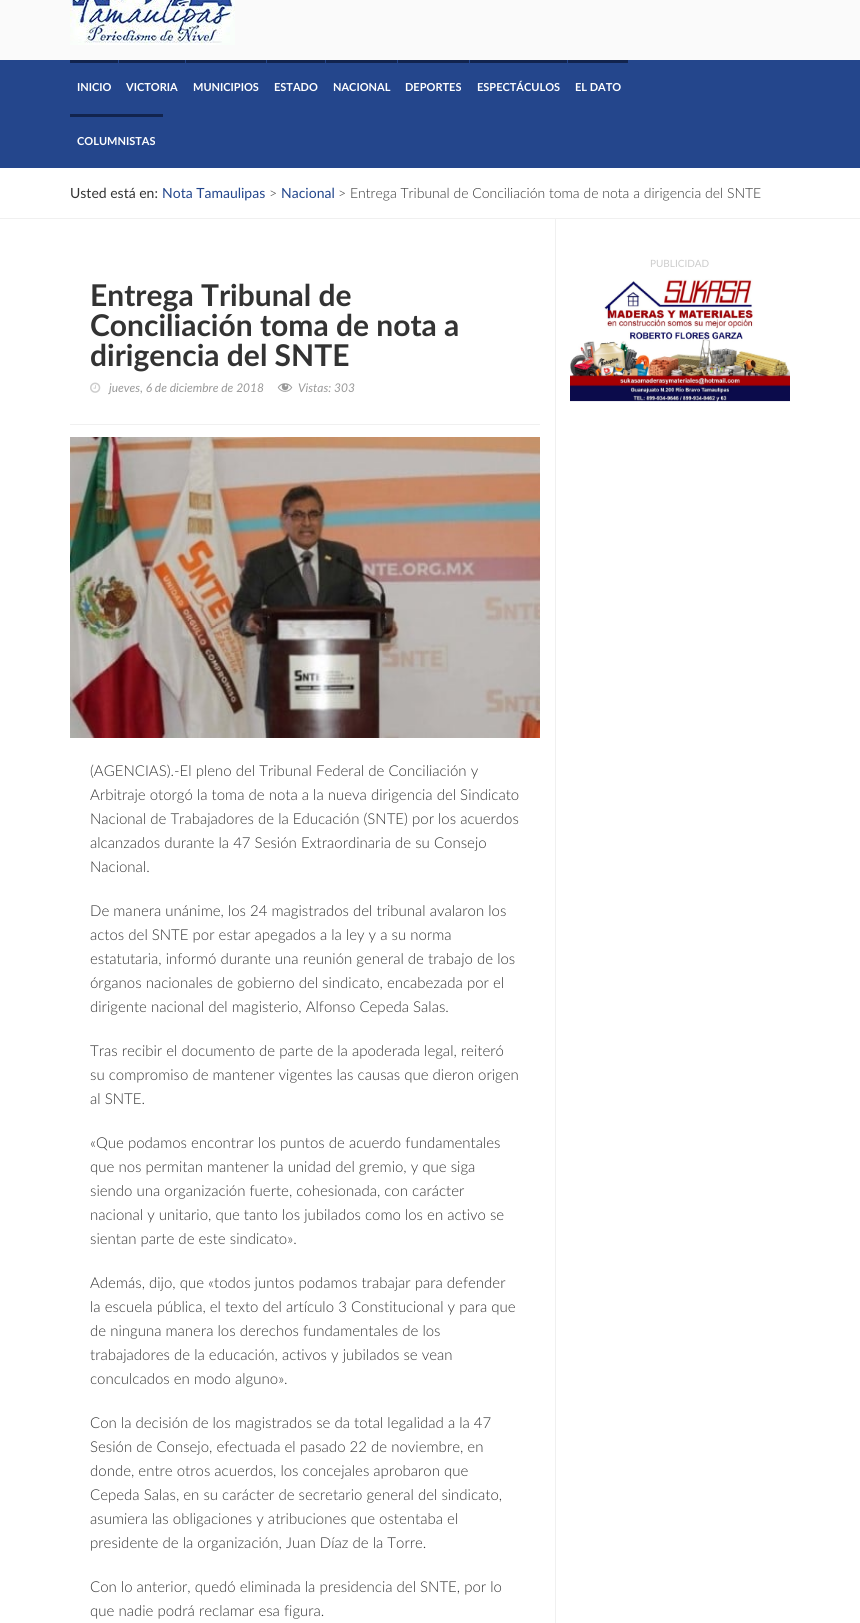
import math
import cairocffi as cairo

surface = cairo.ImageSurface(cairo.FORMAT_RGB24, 860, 1623)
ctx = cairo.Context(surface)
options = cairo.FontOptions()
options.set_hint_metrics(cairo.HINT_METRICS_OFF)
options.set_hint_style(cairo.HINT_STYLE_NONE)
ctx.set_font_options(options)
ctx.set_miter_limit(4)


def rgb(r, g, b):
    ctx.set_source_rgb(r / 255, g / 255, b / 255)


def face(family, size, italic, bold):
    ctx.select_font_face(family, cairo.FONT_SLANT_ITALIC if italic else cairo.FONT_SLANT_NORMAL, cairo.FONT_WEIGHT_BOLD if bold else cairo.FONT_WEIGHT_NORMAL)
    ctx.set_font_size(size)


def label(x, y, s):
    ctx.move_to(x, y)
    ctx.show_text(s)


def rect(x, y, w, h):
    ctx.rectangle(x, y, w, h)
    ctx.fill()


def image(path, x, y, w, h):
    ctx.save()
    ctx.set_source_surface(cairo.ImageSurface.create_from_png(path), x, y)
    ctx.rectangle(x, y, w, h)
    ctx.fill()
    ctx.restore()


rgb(255, 255, 255)
ctx.paint()
rgb(250, 250, 250)
rect(0, 0, 860, 60)
image('image0.png', 70, 0, 165, 45)
rgb(36, 70, 140)
rect(0, 60, 860, 108)
rgb(18, 36, 78)
rect(70, 60, 48, 3)
face('Lato', 11, 0, 1)
rgb(255, 255, 255)
label(77, 91, 'INICIO')
rgb(18, 36, 78)
rect(119, 60, 66, 3)
rgb(255, 255, 255)
label(126, 91, 'VICTORIA')
rgb(18, 36, 78)
rect(186, 60, 80, 3)
rgb(255, 255, 255)
label(193, 91, 'MUNICIPIOS')
rgb(18, 36, 78)
rect(267, 60, 58, 3)
rgb(255, 255, 255)
label(274, 91, 'ESTADO')
rgb(18, 36, 78)
rect(326, 60, 71, 3)
rgb(255, 255, 255)
label(333, 91, 'NACIONAL')
rgb(18, 36, 78)
rect(398, 60, 71, 3)
rgb(255, 255, 255)
label(405, 91, 'DEPORTES')
rgb(18, 36, 78)
rect(470, 60, 97, 3)
rgb(255, 255, 255)
label(477, 91, 'ESPECTÁCULOS')
rgb(18, 36, 78)
rect(568, 60, 60, 3)
rgb(255, 255, 255)
label(575, 91, 'EL DATO')
rgb(18, 36, 78)
rect(70, 114, 93, 3)
rgb(255, 255, 255)
label(77, 145, 'COLUMNISTAS')
rgb(240, 240, 240)
rect(0, 218, 860, 1)
face('Lato', 14, 0, 0)
rgb(51, 51, 51)
label(70, 198, 'Usted está en:')
rgb(35, 70, 140)
label(162, 198, 'Nota Tamaulipas')
face('Lato Light', 14, 0, 0)
rgb(51, 51, 51)
label(269, 198, '>')
face('Lato', 14, 0, 0)
rgb(35, 70, 140)
label(281, 198, 'Nacional')
face('Lato Light', 14, 0, 0)
rgb(51, 51, 51)
label(338, 198, '> Entrega Tribunal de Conciliación toma de nota a dirigencia del SNTE')
face('Lato', 10, 0, 0)
rgb(204, 204, 204)
label(650, 267, 'PUBLICIDAD')
image('image1.png', 570, 279, 220, 123)
rgb(240, 240, 240)
rect(70, 424, 470, 1)
face('Lato', 30, 0, 1)
rgb(51, 51, 51)
label(90, 306, 'Entrega Tribunal de')
label(90, 336, 'Conciliación toma de nota a')
label(90, 366, 'dirigencia del SNTE')
image('image2.png', 90, 382, 11, 11)
face('Lato', 12, 1, 0)
rgb(153, 153, 153)
label(109, 392, 'jueves, 6 de diciembre de 2018')
image('image3.png', 277, 383, 16, 9)
label(298, 392, 'Vistas: 303')
image('image4.png', 70, 437, 470, 301)
face('Lato Light', 15, 0, 0)
rgb(51, 51, 51)
label(90, 776, '(AGENCIAS).-El pleno del Tribunal Federal de Conciliación y')
label(90, 800, 'Arbitraje otorgó la toma de nota a la nueva dirigencia del Sindicato')
label(90, 824, 'Nacional de Trabajadores de la Educación (SNTE) por los acuerdos')
label(90, 848, 'alcanzados durante la 47 Sesión Extraordinaria de su Consejo')
label(90, 872, 'Nacional.')
label(90, 916, 'De manera unánime, los 24 magistrados del tribunal avalaron los')
label(90, 940, 'actos del SNTE por estar apegados a la ley y a su norma')
label(90, 964, 'estatutaria, informó durante una reunión general de trabajo de los')
label(90, 988, 'órganos nacionales de gobierno del sindicato, encabezada por el')
label(90, 1012, 'dirigente nacional del magisterio, Alfonso Cepeda Salas.')
label(90, 1056, 'Tras recibir el documento de parte de la apoderada legal, reiteró')
label(90, 1080, 'su compromiso de mantener vigentes las causas que dieron origen')
label(90, 1104, 'al SNTE.')
label(90, 1148, '«Que podamos encontrar los puntos de acuerdo fundamentales')
label(90, 1172, 'que nos permitan mantener la unidad del gremio, y que siga')
label(90, 1196, 'siendo una organización fuerte, cohesionada, con carácter')
label(90, 1220, 'nacional y unitario, que tanto los jubilados como los en activo se')
label(90, 1244, 'sientan parte de este sindicato».')
label(90, 1288, 'Además, dijo, que «todos juntos podamos trabajar para defender')
label(90, 1312, 'la escuela pública, el texto del artículo 3 Constitucional y para que')
label(90, 1336, 'de ninguna manera los derechos fundamentales de los')
label(90, 1360, 'trabajadores de la educación, activos y jubilados se vean')
label(90, 1384, 'conculcados en modo alguno».')
label(90, 1428, 'Con la decisión de los magistrados se da total legalidad a la 47')
label(90, 1452, 'Sesión de Consejo, efectuada el pasado 22 de noviembre, en')
label(90, 1476, 'donde, entre otros acuerdos, los concejales aprobaron que')
label(90, 1500, 'Cepeda Salas, en su carácter de secretario general del sindicato,')
label(90, 1524, 'asumiera las obligaciones y atribuciones que ostentaba el')
label(90, 1548, 'presidente de la organización, Juan Díaz de la Torre.')
label(90, 1592, 'Con lo anterior, quedó eliminada la presidencia del SNTE, por lo')
label(90, 1616, 'que nadie podrá reclamar esa figura.')
rgb(240, 240, 240)
rect(555, 219, 1, 1404)
surface.write_to_png('render.png')
